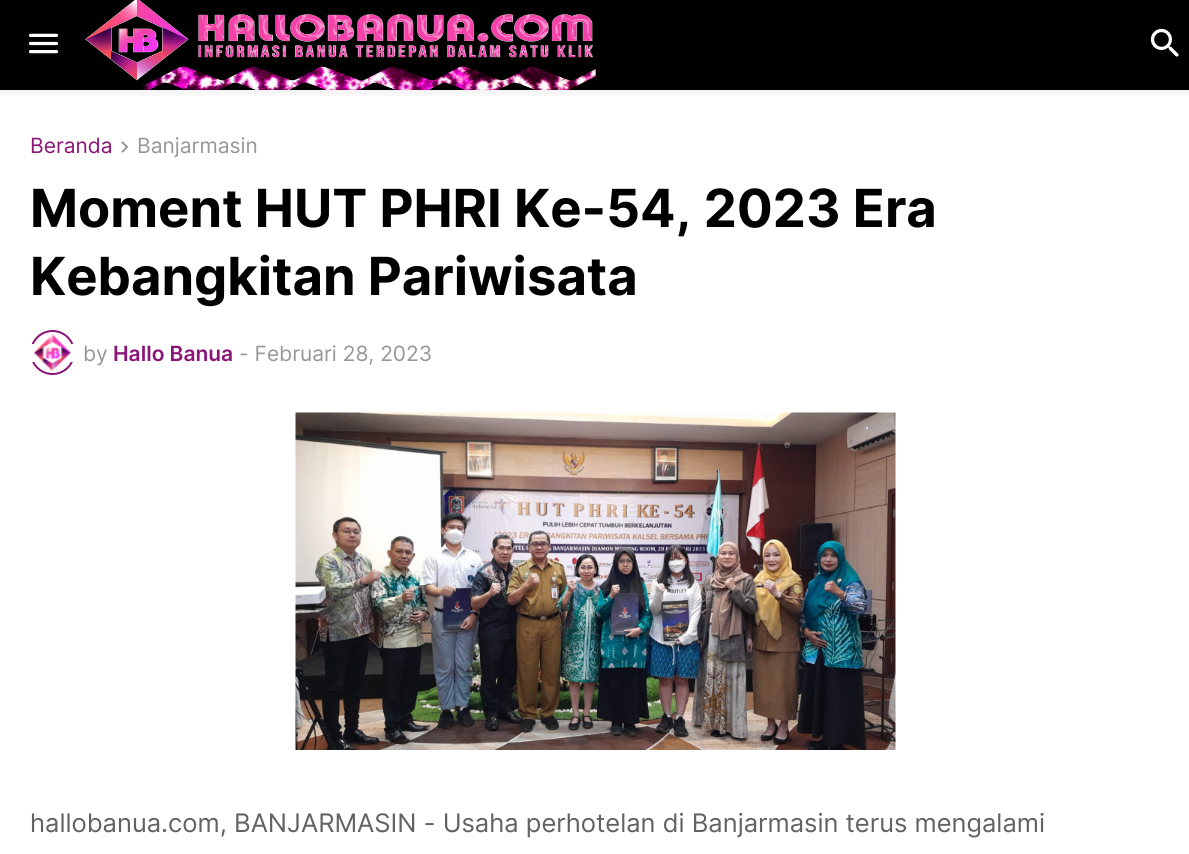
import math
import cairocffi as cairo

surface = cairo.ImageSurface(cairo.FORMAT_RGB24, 1189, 854)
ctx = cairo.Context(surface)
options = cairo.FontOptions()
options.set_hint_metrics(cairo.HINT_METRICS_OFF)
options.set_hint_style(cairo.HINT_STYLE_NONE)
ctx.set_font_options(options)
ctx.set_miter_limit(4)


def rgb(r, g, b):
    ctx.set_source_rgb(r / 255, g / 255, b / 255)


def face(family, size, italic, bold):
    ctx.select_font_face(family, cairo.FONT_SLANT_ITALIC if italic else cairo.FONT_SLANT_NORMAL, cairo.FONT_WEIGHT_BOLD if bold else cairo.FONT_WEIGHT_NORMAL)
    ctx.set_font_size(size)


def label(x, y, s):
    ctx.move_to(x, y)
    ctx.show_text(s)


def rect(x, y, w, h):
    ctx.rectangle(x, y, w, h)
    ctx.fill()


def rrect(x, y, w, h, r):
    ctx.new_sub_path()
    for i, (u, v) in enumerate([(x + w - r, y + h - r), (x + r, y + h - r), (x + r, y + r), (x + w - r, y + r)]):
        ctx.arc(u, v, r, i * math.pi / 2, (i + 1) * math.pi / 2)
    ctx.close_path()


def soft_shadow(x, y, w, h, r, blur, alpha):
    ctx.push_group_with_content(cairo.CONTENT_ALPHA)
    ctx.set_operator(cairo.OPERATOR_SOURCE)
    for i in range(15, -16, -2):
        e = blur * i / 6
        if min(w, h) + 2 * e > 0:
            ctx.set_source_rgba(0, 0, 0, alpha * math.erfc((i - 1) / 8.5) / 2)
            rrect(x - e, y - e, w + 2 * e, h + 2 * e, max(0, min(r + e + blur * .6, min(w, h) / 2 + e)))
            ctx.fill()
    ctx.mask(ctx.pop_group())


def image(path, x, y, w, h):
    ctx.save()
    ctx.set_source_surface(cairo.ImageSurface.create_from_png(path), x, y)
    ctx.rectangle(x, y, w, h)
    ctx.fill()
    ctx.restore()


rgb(255, 255, 255)
ctx.paint()
rgb(0, 0, 0)
rect(0, 0, 1189, 90)
ctx.save()
ctx.rectangle(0, 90, 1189, 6)
ctx.clip()
rgb(0, 0, 0)
soft_shadow(0, 0, 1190, 90, 0, 7.5, 0.1)
ctx.restore()
image('image0.png', 28, 33, 31, 21)
image('image1.png', 85, 0, 511, 90)
image('image2.png', 1150, 28, 29, 29)
face('Inter', 21, 0, 0)
rgb(139, 21, 119)
label(30, 153, 'Beranda')
image('image3.png', 121, 141, 7, 12)
rgb(151, 151, 151)
label(137, 153, 'Banjarmasin')
face('Inter', 52.5, 0, 1)
rgb(0, 0, 0)
label(30, 227, 'Moment HUT PHRI Ke-54, 2023 Era')
label(30, 295, 'Kebangkitan Pariwisata')
ctx.new_path()
ctx.arc(52.5, 352.5, 21.5, 0, 2 * math.pi)
rgb(139, 21, 119)
ctx.stroke()
rgb(255, 255, 255)
rect(30, 344, 45, 18)
image('image4.png', 34, 334, 37, 37)
face('Inter', 21, 0, 0)
rgb(151, 151, 151)
label(83, 361, 'by')
face('Inter SemiBold', 21, 0, 0)
rgb(139, 21, 119)
label(113, 361, 'Hallo Banua')
face('Inter', 21, 0, 0)
rgb(151, 151, 151)
label(239, 361, '- Februari 28, 2023')
image('image5.png', 295, 412, 601, 338)
face('Inter', 25.5, 0, 0)
rgb(98, 98, 98)
label(30, 832, 'hallobanua.com, BANJARMASIN - Usaha perhotelan di Banjarmasin terus mengalami')
surface.write_to_png('render.png')
